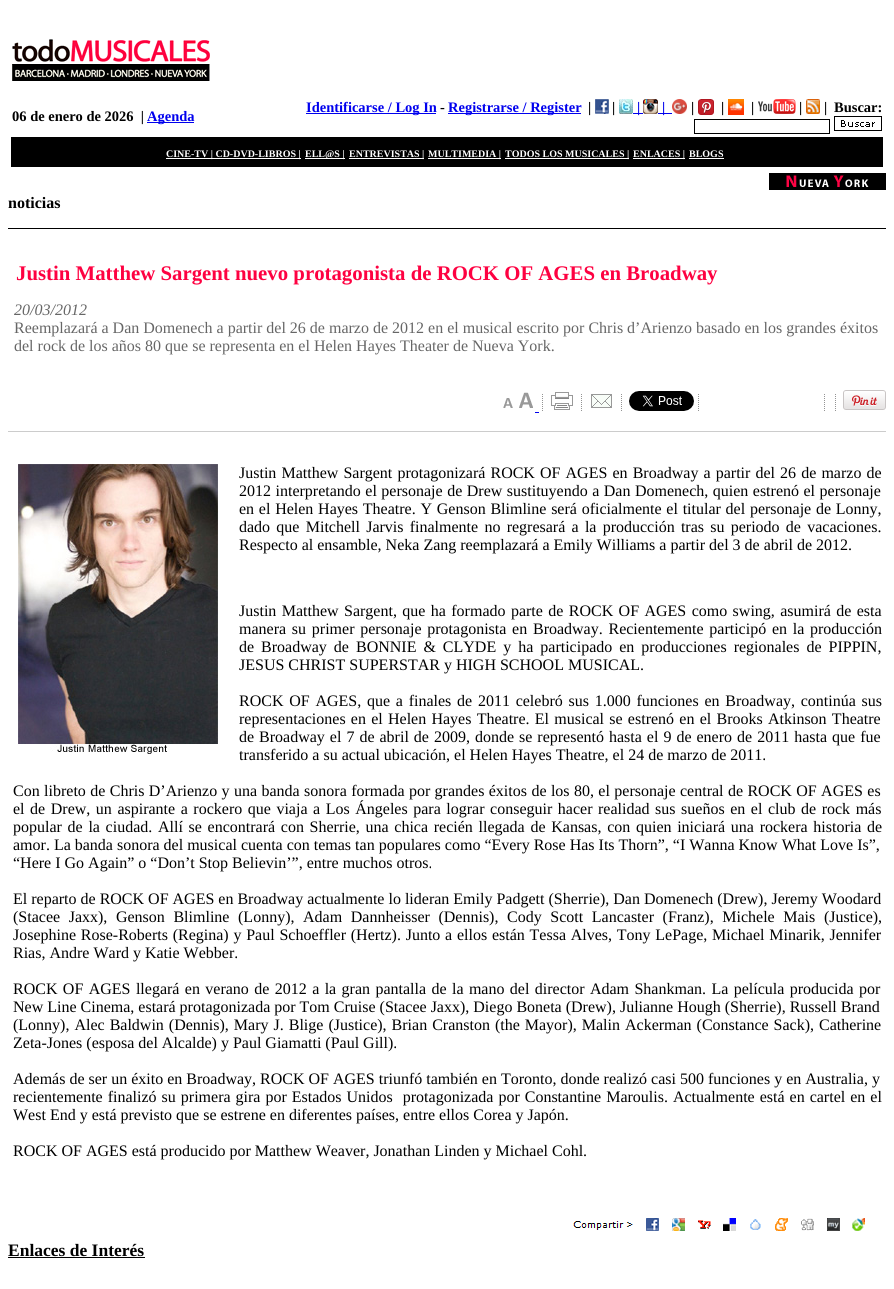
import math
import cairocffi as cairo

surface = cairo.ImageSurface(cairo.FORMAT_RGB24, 894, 1289)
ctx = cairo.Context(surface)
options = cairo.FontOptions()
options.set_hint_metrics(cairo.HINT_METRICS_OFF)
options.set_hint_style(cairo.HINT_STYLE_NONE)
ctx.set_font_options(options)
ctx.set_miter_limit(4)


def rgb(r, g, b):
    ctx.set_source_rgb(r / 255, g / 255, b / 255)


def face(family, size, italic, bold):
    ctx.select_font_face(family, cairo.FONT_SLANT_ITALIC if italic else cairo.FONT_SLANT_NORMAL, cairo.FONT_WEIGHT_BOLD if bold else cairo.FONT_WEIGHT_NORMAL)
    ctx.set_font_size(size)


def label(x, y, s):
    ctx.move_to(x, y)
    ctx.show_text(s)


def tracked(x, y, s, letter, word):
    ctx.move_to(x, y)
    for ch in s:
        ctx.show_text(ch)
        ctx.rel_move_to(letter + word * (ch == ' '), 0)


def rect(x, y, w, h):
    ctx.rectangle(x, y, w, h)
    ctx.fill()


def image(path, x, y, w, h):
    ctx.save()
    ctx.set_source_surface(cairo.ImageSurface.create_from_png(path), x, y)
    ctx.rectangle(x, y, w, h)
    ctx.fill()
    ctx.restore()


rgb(255, 255, 255)
ctx.paint()
image('image0.png', 12, 39, 198, 42)
rgb(0, 0, 238)
rect(306, 113, 130, 1)
face('Liberation Serif', 14.5, 0, 1)
label(306, 112, 'Identificarse / Log In')
rgb(0, 0, 0)
label(440, 112, '-')
rgb(0, 0, 238)
rect(448, 113, 133, 1)
label(448, 112, 'Registrarse / Register')
rgb(0, 0, 0)
label(588, 112, '|')
image('image1.png', 595, 99, 14, 15)
label(612, 112, '|')
image('image2.png', 619, 99, 14, 15)
rgb(0, 0, 238)
rect(633, 113, 10, 1)
label(637, 112, '|')
image('image3.png', 643, 99, 15, 15)
rect(658, 113, 14, 1)
label(662, 112, '|')
image('image4.png', 672, 99, 15, 15)
rgb(0, 0, 0)
label(691, 112, '|')
image('image5.png', 698, 99, 16, 16)
label(721, 112, '|')
image('image6.png', 728, 99, 16, 16)
label(751, 112, '|')
image('image7.png', 758, 99, 38, 15)
label(799, 112, '|')
image('image8.png', 806, 99, 14, 15)
label(824, 112, '|')
label(834, 112, 'Buscar:')
ctx.rectangle(694.5, 119.5, 135, 14)
ctx.set_line_width(1)
ctx.stroke()
image('image9.png', 834, 116, 48, 15)
label(12, 121, '06 de enero de 2026  |')
rgb(0, 0, 238)
rect(147, 122, 47, 1)
label(147, 121, 'Agenda')
rgb(0, 0, 0)
rect(11, 137, 872, 30)
rgb(255, 255, 255)
rect(166, 158, 135, 1)
face('Liberation Serif', 10, 0, 1)
label(166, 157, 'CINE-TV | CD-DVD-LIBROS |')
rect(305, 158, 40, 1)
label(305, 157, 'ELL@S |')
rect(349, 158, 75, 1)
label(349, 157, 'ENTREVISTAS |')
rect(428, 158, 73, 1)
label(428, 157, 'MULTIMEDIA |')
rect(505, 158, 124, 1)
label(505, 157, 'TODOS LOS MUSICALES |')
rect(633, 158, 52, 1)
label(633, 157, 'ENLACES |')
label(689, 157, 'BLOGS')
rect(689, 158, 35, 1)
rgb(0, 0, 0)
rect(8, 228, 878, 1)
image('image10.png', 769, 173, 117, 17)
face('Liberation Serif', 16, 0, 1)
label(8, 208, 'noticias')
face('Liberation Serif', 20.8, 0, 1)
rgb(254, 1, 65)
label(16, 280, 'Justin Matthew Sargent nuevo protagonista de ROCK OF AGES en Broadway')
face('Liberation Serif', 16, 1, 0)
rgb(102, 102, 102)
label(14, 315, '20/03/2012')
face('Liberation Serif', 16, 0, 0)
label(14, 333, 'Reemplazará a Dan Domenech a partir del 26 de marzo de 2012 en el musical escrito por Chris d’Arienzo basado en los grandes éxitos')
label(14, 351, 'del rock de los años 80 que se representa en el Helen Hayes Theater de Nueva York.')
rgb(204, 204, 204)
rect(8, 431, 878, 1)
image('image11.png', 503, 398, 10, 10)
image('image12.png', 519, 392, 14, 16)
image('image13.png', 542, 394, 1, 17)
image('image14.png', 551, 392, 22, 18)
image('image13.png', 581, 394, 1, 17)
image('image15.png', 591, 394, 21, 14)
image('image13.png', 621, 394, 1, 17)
image('image16.png', 629, 391, 65, 20)
image('image13.png', 698, 394, 1, 17)
image('image13.png', 824, 394, 1, 17)
image('image13.png', 835, 394, 1, 17)
image('image17.png', 843, 390, 43, 20)
rgb(0, 0, 238)
rect(535, 412, 4, 1)
image('image18.png', 18, 464, 200, 290)
rgb(0, 0, 0)
tracked(239, 478, 'Justin Matthew Sargent protagonizará ROCK OF AGES en Broadway a partir del 26 de marzo de', 0, 1.1)
tracked(239, 496, '2012 interpretando el personaje de Drew sustituyendo a Dan Domenech, quien estrenó el personaje', 0, 0.5)
tracked(239, 514, 'en el Helen Hayes Theatre. Y Genson Blimline será oficialmente el titular del personaje de Lonny,', 0, 0.75)
tracked(239, 532, 'dado que Mitchell Jarvis finalmente no regresará a la producción tras su periodo de vacaciones.', 0, 2.25)
label(239, 550, 'Respecto al ensamble, Neka Zang reemplazará a Emily Williams a partir del 3 de abril de 2012.')
tracked(239, 616, 'Justin Matthew Sargent, que ha formado parte de ROCK OF AGES como swing, asumirá de esta', 0, 1.4)
tracked(239, 634, 'manera su primer personaje protagonista en Broadway. Recientemente participó en la producción', 0, 1.75)
tracked(239, 652, 'de Broadway de BONNIE & CLYDE y ha participado en producciones regionales de PIPPIN,', 0, 3)
label(239, 670, 'JESUS CHRIST SUPERSTAR y HIGH SCHOOL MUSICAL.')
tracked(239, 706, 'ROCK OF AGES, que a finales de 2011 celebró sus 1.000 funciones en Broadway, continúa sus', 0, 1.75)
tracked(239, 724, 'representaciones en el Helen Hayes Theatre. El musical se estrenó en el Brooks Atkinson Theatre', 0, 1.25)
tracked(239, 742, 'de Broadway el 7 de abril de 2009, donde se representó hasta el 9 de enero de 2011 hasta que fue', 0, 1)
label(239, 760, 'transferido a su actual ubicación, el Helen Hayes Theatre, el 24 de marzo de 2011.')
tracked(13, 796, 'Con libreto de Chris D’Arienzo y una banda sonora formada por grandes éxitos de los 80, el personaje central de ROCK OF AGES es', 0, 0.4)
tracked(13, 814, 'el de Drew, un aspirante a rockero que viaja a Los Ángeles para lograr conseguir hacer realidad sus sueños en el club de rock más', 0, 1.55)
tracked(13, 832, 'popular de la ciudad. Allí se encontrará con Sherrie, una chica recién llegada de Kansas, con quien iniciará una rockera historia de', 0, 1.7)
label(13, 850, 'amor. La banda sonora del musical cuenta con temas tan populares como “Every Rose Has Its Thorn”, “I Wanna Know What Love Is”,')
label(13, 868, '“Here I Go Again” o “Don’t Stop Believin’”, entre muchos otros.')
label(13, 904, 'El reparto de ROCK OF AGES en Broadway actualmente lo lideran Emily Padgett (Sherrie), Dan Domenech (Drew), Jeremy Woodard')
tracked(13, 922, '(Stacee Jaxx), Genson Blimline (Lonny), Adam Dannheisser (Dennis), Cody Scott Lancaster (Franz), Michele Mais (Justice),', 0, 4.6)
tracked(13, 940, 'Josephine Rose-Roberts (Regina) y Paul Schoeffler (Hertz). Junto a ellos están Tessa Alves, Tony LePage, Michael Minarik, Jennifer', 0, 0.75)
label(13, 958, 'Rias, Andre Ward y Katie Webber.')
tracked(13, 994, 'ROCK OF AGES llegará en verano de 2012 a la gran pantalla de la mano del director Adam Shankman. La película producida por', 0, 1.4)
label(13, 1012, 'New Line Cinema, estará protagonizada por Tom Cruise (Stacee Jaxx), Diego Boneta (Drew), Julianne Hough (Sherrie), Russell Brand')
tracked(13, 1030, '(Lonny), Alec Baldwin (Dennis), Mary J. Blige (Justice), Brian Cranston (the Mayor), Malin Ackerman (Constance Sack), Catherine', 0, 1)
label(13, 1048, 'Zeta-Jones (esposa del Alcalde) y Paul Giamatti (Paul Gill).')
label(13, 1084, 'Además de ser un éxito en Broadway, ROCK OF AGES triunfó también en Toronto, donde realizó casi 500 funciones y en Australia, y')
tracked(13, 1102, 'recientemente finalizó su primera gira por Estados Unidos  protagonizada por Constantine Maroulis. Actualmente está en cartel en el', 0, 1)
label(13, 1120, 'West End y está previsto que se estrene en diferentes países, entre ellos Corea y Japón.')
label(13, 1156, 'ROCK OF AGES está producido por Matthew Weaver, Jonathan Linden y Michael Cohl.')
image('image19.png', 573, 1221, 60, 9)
image('image20.png', 646, 1218, 13, 13)
image('image21.png', 672, 1218, 13, 13)
image('image22.png', 698, 1220, 13, 9)
image('image23.png', 723, 1218, 13, 13)
image('image24.png', 750, 1219, 11, 11)
image('image25.png', 775, 1218, 13, 13)
image('image26.png', 801, 1218, 13, 13)
image('image27.png', 827, 1218, 13, 13)
image('image28.png', 852, 1218, 13, 13)
face('Liberation Serif', 17.5, 0, 1)
label(8, 1256, 'Enlaces de Interés')
rect(8, 1257, 137, 1)
surface.write_to_png('render.png')
